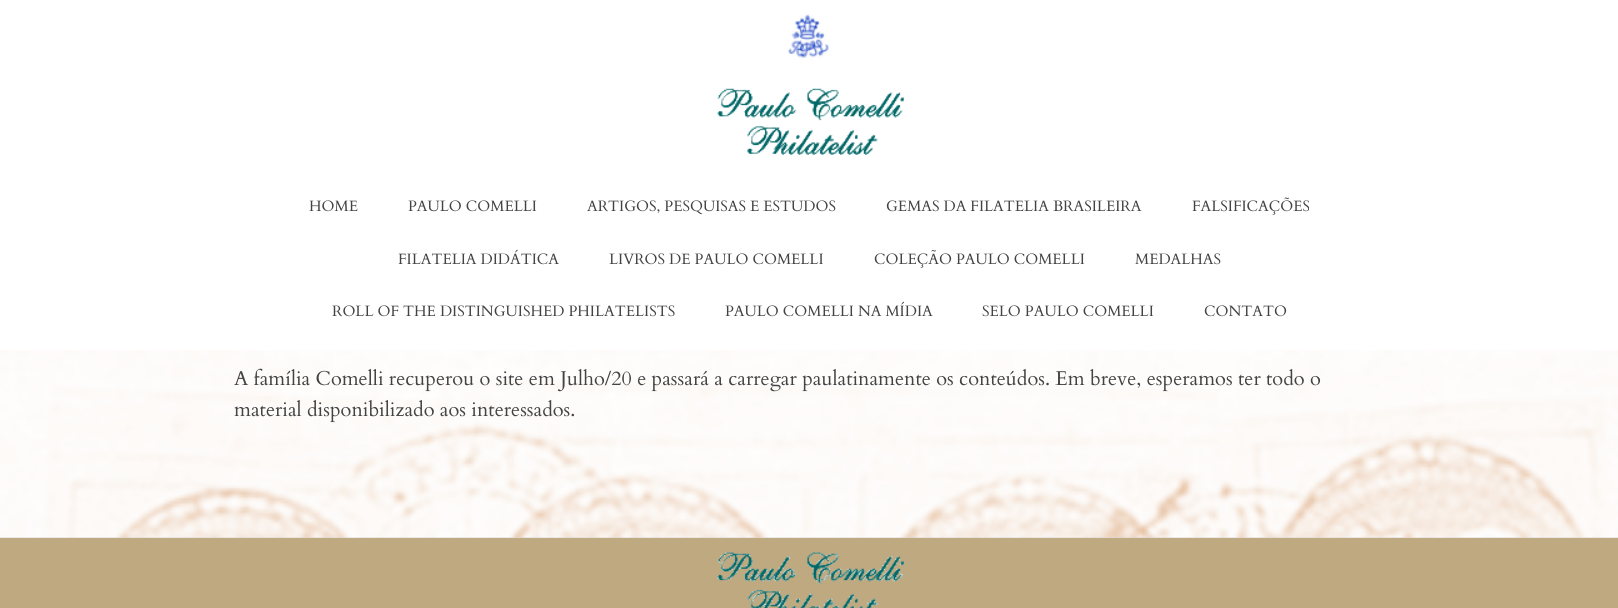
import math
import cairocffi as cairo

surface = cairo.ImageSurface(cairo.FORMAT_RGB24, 1618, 608)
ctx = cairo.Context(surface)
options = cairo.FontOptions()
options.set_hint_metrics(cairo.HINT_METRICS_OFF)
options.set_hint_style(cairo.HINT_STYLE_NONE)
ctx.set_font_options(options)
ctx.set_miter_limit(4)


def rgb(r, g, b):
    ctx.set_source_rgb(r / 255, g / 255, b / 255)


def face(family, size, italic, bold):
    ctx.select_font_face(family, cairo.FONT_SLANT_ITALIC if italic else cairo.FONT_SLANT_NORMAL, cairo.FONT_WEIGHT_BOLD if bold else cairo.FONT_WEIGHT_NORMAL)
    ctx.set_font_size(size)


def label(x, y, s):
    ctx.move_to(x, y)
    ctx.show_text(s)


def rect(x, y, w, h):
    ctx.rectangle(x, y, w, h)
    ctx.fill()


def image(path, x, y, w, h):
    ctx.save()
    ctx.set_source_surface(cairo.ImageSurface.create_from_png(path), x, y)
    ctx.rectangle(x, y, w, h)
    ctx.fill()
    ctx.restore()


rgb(191, 169, 128)
ctx.paint()
rgb(255, 255, 255)
rect(0, 0, 1618, 350)
image('image0.png', 788, 14, 41, 45)
image('image1.png', 717, 88, 187, 67)
face('Cardo', 15, 0, 0)
rgb(67, 67, 67)
label(309, 211, 'HOME')
label(408, 211, 'PAULO COMELLI')
label(587, 211, 'ARTIGOS, PESQUISAS E ESTUDOS')
label(886, 211, 'GEMAS DA FILATELIA BRASILEIRA')
label(1192, 211, 'FALSIFICAÇÕES')
label(398, 264, 'FILATELIA DIDÁTICA')
label(609, 264, 'LIVROS DE PAULO COMELLI')
label(874, 264, 'COLEÇÃO PAULO COMELLI')
label(1135, 264, 'MEDALHAS')
label(332, 316, 'ROLL OF THE DISTINGUISHED PHILATELISTS')
label(725, 316, 'PAULO COMELLI NA MÍDIA')
label(982, 316, 'SELO PAULO COMELLI')
label(1204, 316, 'CONTATO')
rgb(217, 217, 217)
rect(0, 537, 1618, 1)
image('image2.png', 0, 350, 1618, 188)
face('Cardo', 20, 0, 0)
rgb(67, 67, 67)
label(234, 385, 'A família Comelli recuperou o site em Julho/20 e passará a carregar paulatinamente os conteúdos. Em breve, esperamos ter todo o')
label(234, 416, 'material disponibilizado aos interessados.')
image('image3.png', 717, 552, 187, 56)
surface.write_to_png('render.png')
